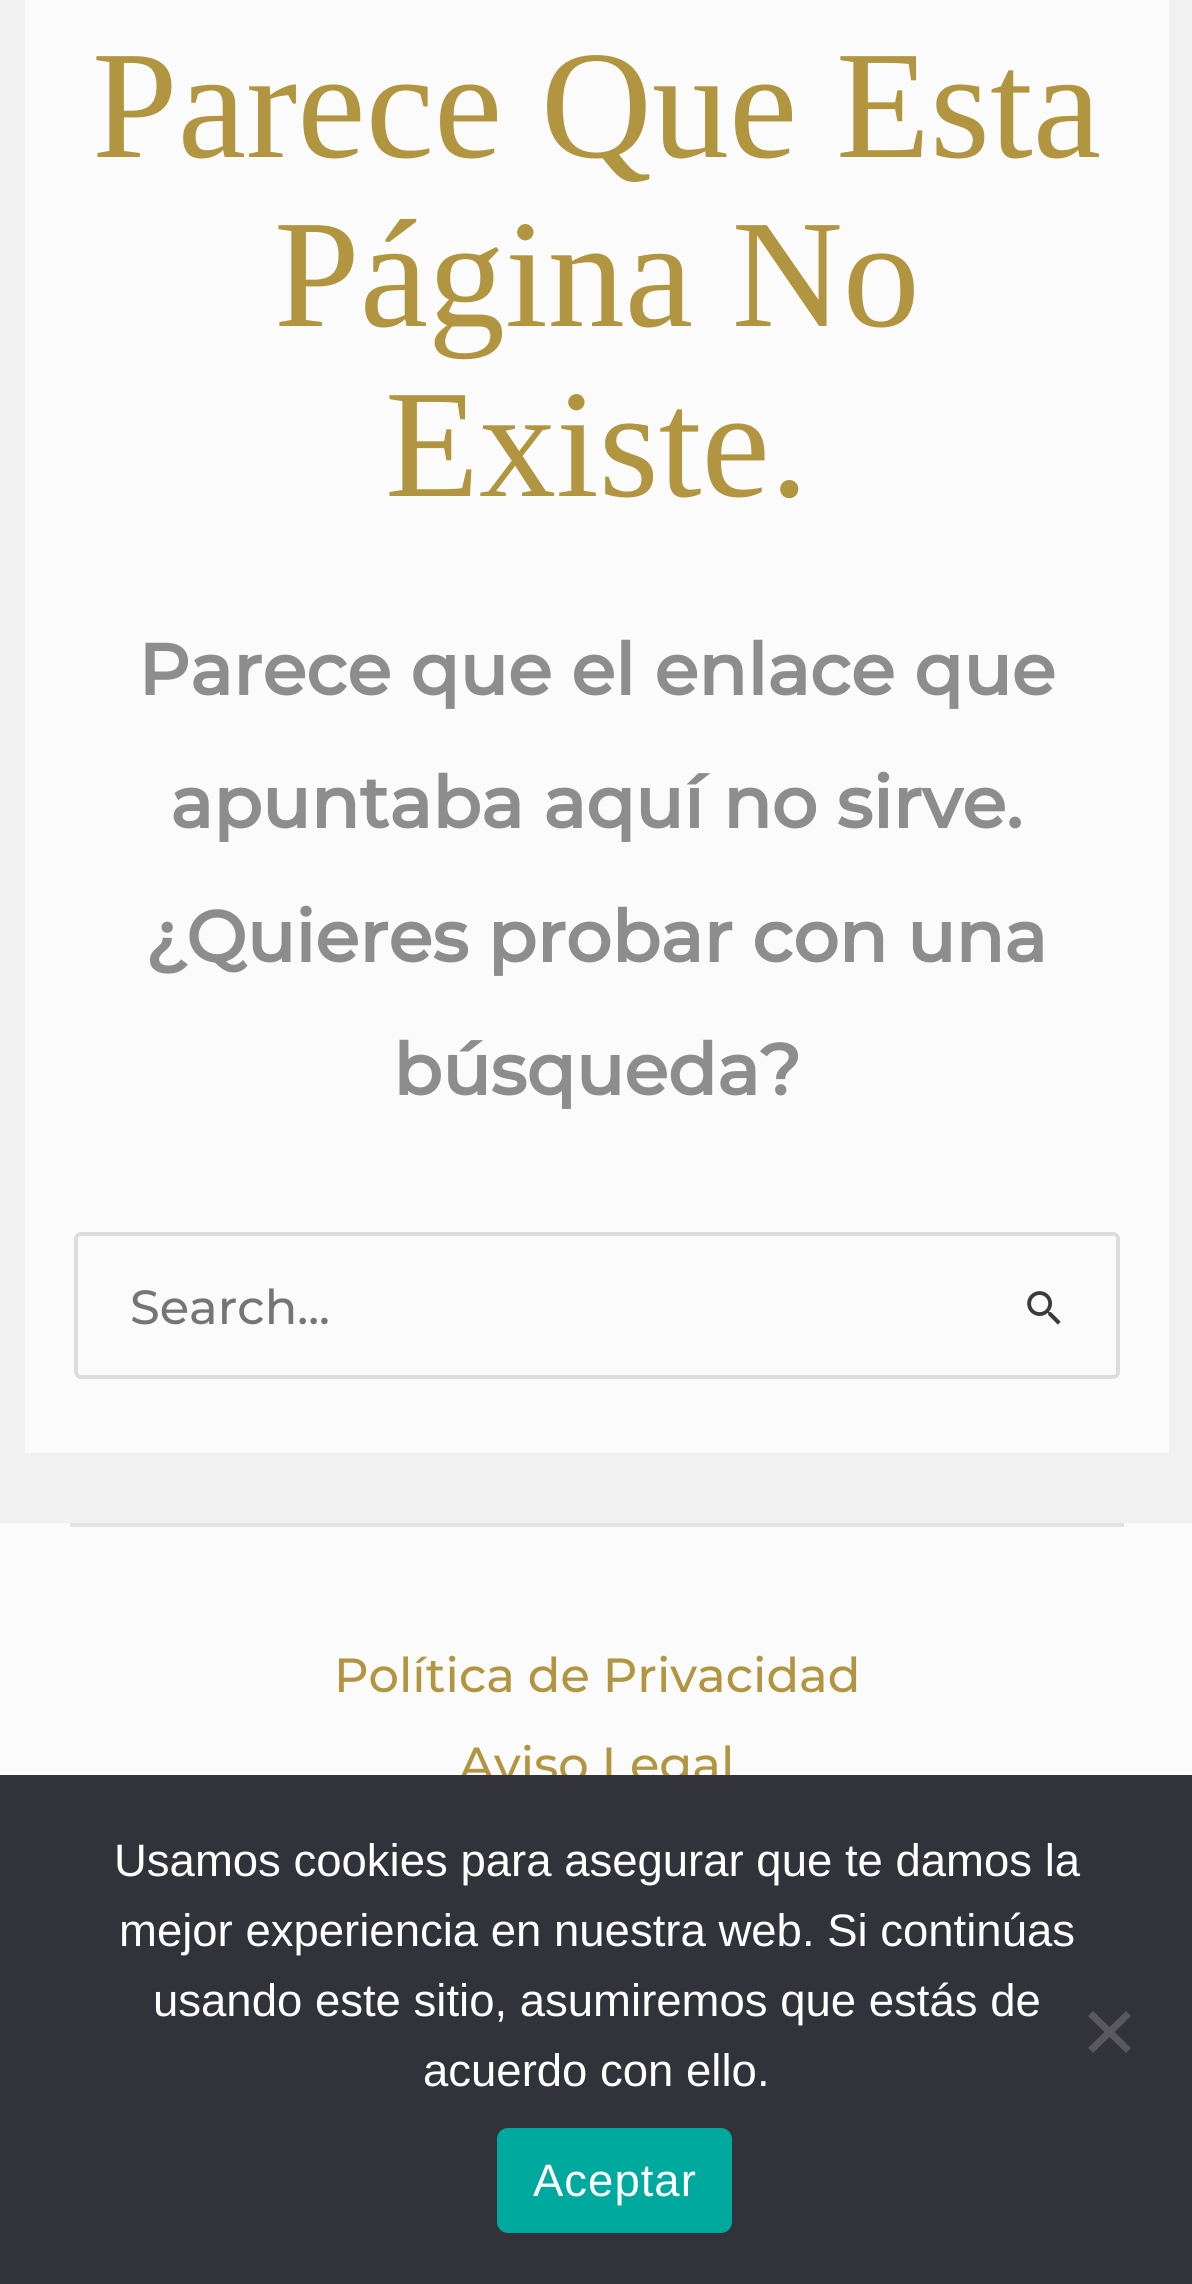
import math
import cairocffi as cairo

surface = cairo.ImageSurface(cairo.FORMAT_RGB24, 1192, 2284)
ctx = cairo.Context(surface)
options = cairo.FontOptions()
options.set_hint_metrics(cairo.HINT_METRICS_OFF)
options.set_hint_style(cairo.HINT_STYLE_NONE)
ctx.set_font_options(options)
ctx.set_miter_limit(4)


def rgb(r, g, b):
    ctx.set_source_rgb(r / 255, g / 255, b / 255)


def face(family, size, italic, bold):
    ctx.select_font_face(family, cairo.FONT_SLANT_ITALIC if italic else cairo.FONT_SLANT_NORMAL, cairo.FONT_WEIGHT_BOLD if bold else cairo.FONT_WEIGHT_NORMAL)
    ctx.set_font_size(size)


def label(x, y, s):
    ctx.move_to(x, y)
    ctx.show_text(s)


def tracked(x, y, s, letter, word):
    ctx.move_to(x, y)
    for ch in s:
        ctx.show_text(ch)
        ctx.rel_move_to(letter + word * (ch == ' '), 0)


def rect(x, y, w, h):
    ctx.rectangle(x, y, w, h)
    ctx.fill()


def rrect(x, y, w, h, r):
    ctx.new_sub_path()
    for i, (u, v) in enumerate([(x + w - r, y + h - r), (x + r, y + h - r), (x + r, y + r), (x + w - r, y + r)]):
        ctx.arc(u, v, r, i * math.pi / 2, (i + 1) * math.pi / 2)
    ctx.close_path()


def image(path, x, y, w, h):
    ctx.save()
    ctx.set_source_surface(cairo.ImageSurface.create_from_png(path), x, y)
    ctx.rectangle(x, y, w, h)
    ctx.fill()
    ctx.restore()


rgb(241, 241, 241)
ctx.paint()
rgb(251, 251, 251)
rect(25, 0, 1144, 1453)
face('Liberation Serif', 154, 0, 0)
rgb(177, 149, 64)
label(92, 157, 'Parece Que Esta')
label(274, 326, 'Página No')
label(385, 496, 'Existe.')
face('Montserrat', 71.75, 0, 1)
rgb(141, 141, 141)
label(138, 695, 'Parece que el enlace que')
label(170, 828, 'apuntaba aquí no sirve.')
label(145, 962, '¿Quieres probar con una')
label(393, 1095, 'búsqueda?')
rrect(76, 1234, 1042, 143, 5)
rgb(221, 221, 221)
ctx.set_line_width(4)
ctx.stroke()
face('Montserrat Thin', 47.9, 0, 0)
rgb(117, 117, 117)
label(130, 1324, 'Search...')
image('image0.png', 1027, 1291, 34, 34)
rgb(251, 251, 251)
rect(0, 1523, 1192, 252)
rgb(226, 226, 226)
rect(70, 1523, 1054, 4)
rgb(177, 149, 64)
label(334, 1692, 'Política de Privacidad')
label(459, 1781, 'Aviso Legal')
rgb(50, 50, 58)
rect(0, 1775, 1192, 509)
face('Liberation Sans', 45.5, 0, 0)
rgb(255, 255, 255)
label(114, 1876, 'Usamos cookies para asegurar que te damos la')
label(119, 1946, 'mejor experiencia en nuestra web. Si continúas')
label(153, 2016, 'usando este sitio, asumiremos que estás de')
label(423, 2086, 'acuerdo con ello.')
rgb(89, 89, 93)
ctx.new_path()
ctx.move_to(1126, 2011)
ctx.line_to(1131, 2016)
ctx.line_to(1093, 2053)
ctx.line_to(1088, 2048)
ctx.close_path()
ctx.fill()
ctx.new_path()
ctx.move_to(1088, 2016)
ctx.line_to(1093, 2011)
ctx.line_to(1131, 2048)
ctx.line_to(1126, 2053)
ctx.close_path()
ctx.fill()
rgb(0, 169, 157)
rrect(497, 2128, 235, 105, 11)
ctx.fill()
rgb(255, 255, 255)
tracked(533, 2196, 'Aceptar', 1, 0)
surface.write_to_png('render.png')
